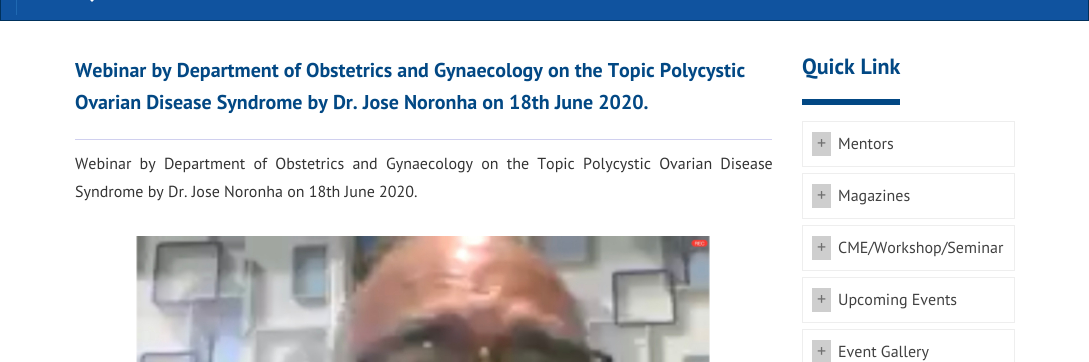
import math
import cairocffi as cairo

surface = cairo.ImageSurface(cairo.FORMAT_RGB24, 1089, 362)
ctx = cairo.Context(surface)
options = cairo.FontOptions()
options.set_hint_metrics(cairo.HINT_METRICS_OFF)
options.set_hint_style(cairo.HINT_STYLE_NONE)
ctx.set_font_options(options)
ctx.set_miter_limit(4)


def rgb(r, g, b):
    ctx.set_source_rgb(r / 255, g / 255, b / 255)


def face(family, size, italic, bold):
    ctx.select_font_face(family, cairo.FONT_SLANT_ITALIC if italic else cairo.FONT_SLANT_NORMAL, cairo.FONT_WEIGHT_BOLD if bold else cairo.FONT_WEIGHT_NORMAL)
    ctx.set_font_size(size)


def label(x, y, s):
    ctx.move_to(x, y)
    ctx.show_text(s)


def tracked(x, y, s, letter, word):
    ctx.move_to(x, y)
    for ch in s:
        ctx.show_text(ch)
        ctx.rel_move_to(letter + word * (ch == ' '), 0)


def rect(x, y, w, h):
    ctx.rectangle(x, y, w, h)
    ctx.fill()


def image(path, x, y, w, h):
    ctx.save()
    ctx.set_source_surface(cairo.ImageSurface.create_from_png(path), x, y)
    ctx.rectangle(x, y, w, h)
    ctx.fill()
    ctx.restore()


rgb(255, 255, 255)
ctx.paint()
rgb(16, 83, 159)
ctx.rectangle(0.5, -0.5, 1088, 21)
ctx.fill_preserve()
rgb(0, 49, 92)
ctx.set_line_width(1)
ctx.stroke()
rgb(31, 105, 178)
rect(16, 0, 1, 15)
rgb(255, 255, 255)
ctx.new_path()
ctx.move_to(88, -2)
ctx.line_to(96, -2)
ctx.line_to(92, 2)
ctx.close_path()
ctx.fill()
rgb(208, 208, 239)
rect(75, 139, 697, 1)
face('PT Sans', 20, 0, 1)
rgb(2, 72, 132)
label(75, 77, 'Webinar by Department of Obstetrics and Gynaecology on the Topic Polycystic')
label(75, 109, 'Ovarian Disease Syndrome by Dr. Jose Noronha on 18th June 2020.')
face('PT Sans', 16, 0, 0)
rgb(51, 51, 51)
tracked(75, 169, 'Webinar by Department of Obstetrics and Gynaecology on the Topic Polycystic Ovarian Disease', 0, 3.9)
label(75, 197, 'Syndrome by Dr. Jose Noronha on 18th June 2020.')
image('image0.png', 136, 236, 574, 126)
rgb(2, 72, 132)
rect(802, 99, 98, 6)
face('PT Sans', 22, 0, 1)
label(802, 74, 'Quick Link')
ctx.rectangle(802.5, 121.5, 212, 45)
rgb(238, 238, 238)
ctx.stroke()
rgb(206, 206, 206)
rect(812, 132, 19, 24)
face('PT Sans', 18, 0, 0)
rgb(111, 111, 111)
label(817, 149, '+')
face('PT Sans', 16, 0, 0)
rgb(64, 64, 64)
label(838, 149, 'Mentors')
ctx.rectangle(802.5, 173.5, 212, 45)
rgb(238, 238, 238)
ctx.stroke()
rgb(206, 206, 206)
rect(812, 184, 19, 24)
face('PT Sans', 18, 0, 0)
rgb(111, 111, 111)
label(817, 201, '+')
face('PT Sans', 16, 0, 0)
rgb(64, 64, 64)
label(838, 201, 'Magazines')
ctx.rectangle(802.5, 225.5, 212, 45)
rgb(238, 238, 238)
ctx.stroke()
rgb(206, 206, 206)
rect(812, 236, 19, 24)
face('PT Sans', 18, 0, 0)
rgb(111, 111, 111)
label(817, 253, '+')
face('PT Sans', 16, 0, 0)
rgb(64, 64, 64)
label(838, 253, 'CME/Workshop/Seminar')
ctx.rectangle(802.5, 277.5, 212, 45)
rgb(238, 238, 238)
ctx.stroke()
rgb(206, 206, 206)
rect(812, 288, 19, 24)
face('PT Sans', 18, 0, 0)
rgb(111, 111, 111)
label(817, 305, '+')
face('PT Sans', 16, 0, 0)
rgb(64, 64, 64)
label(838, 305, 'Upcoming Events')
ctx.rectangle(802.5, 329.5, 212, 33)
rgb(238, 238, 238)
ctx.stroke()
rgb(206, 206, 206)
rect(812, 340, 19, 22)
face('PT Sans', 18, 0, 0)
rgb(111, 111, 111)
label(817, 357, '+')
face('PT Sans', 16, 0, 0)
rgb(64, 64, 64)
label(838, 357, 'Event Gallery')
surface.write_to_png('render.png')
